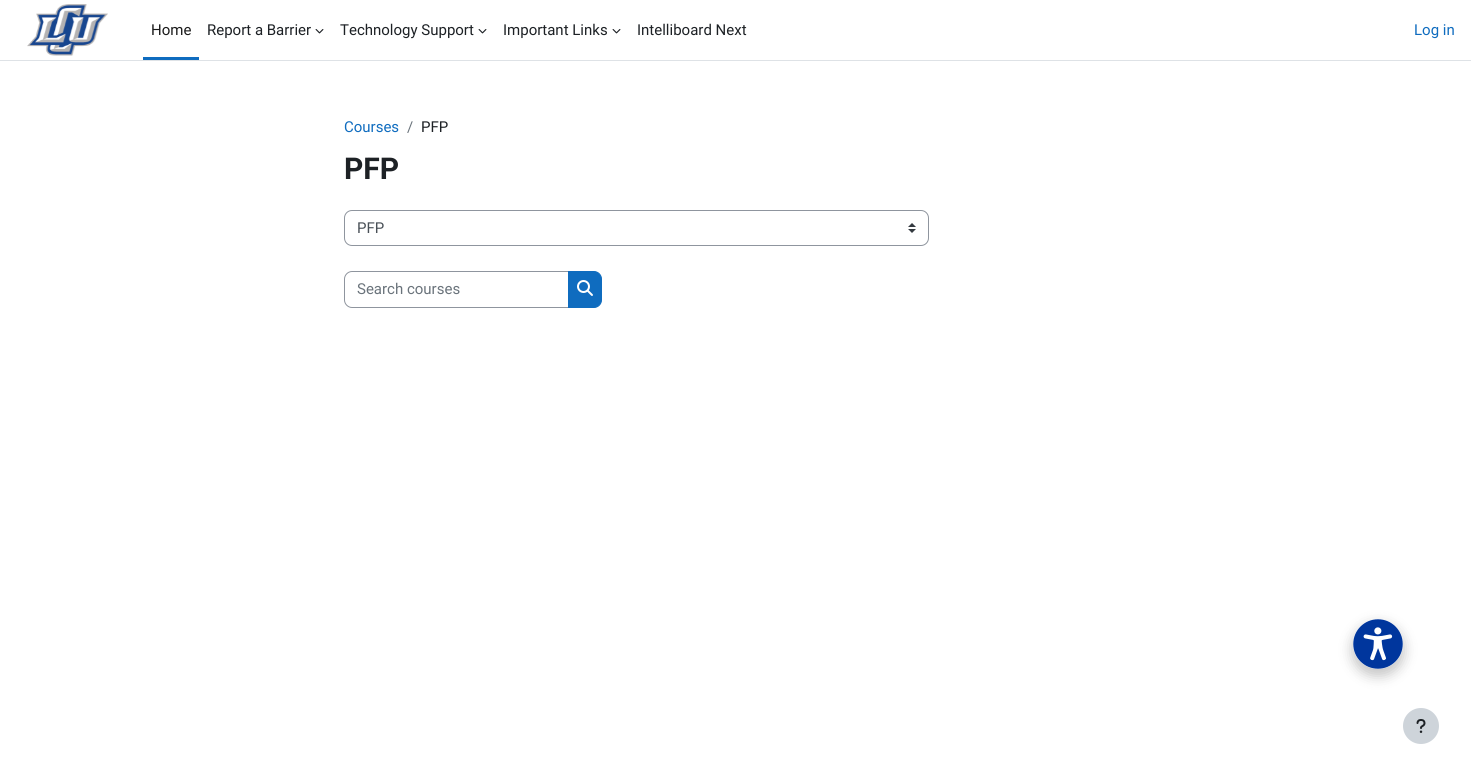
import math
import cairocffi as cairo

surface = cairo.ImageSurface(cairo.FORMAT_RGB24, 1471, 776)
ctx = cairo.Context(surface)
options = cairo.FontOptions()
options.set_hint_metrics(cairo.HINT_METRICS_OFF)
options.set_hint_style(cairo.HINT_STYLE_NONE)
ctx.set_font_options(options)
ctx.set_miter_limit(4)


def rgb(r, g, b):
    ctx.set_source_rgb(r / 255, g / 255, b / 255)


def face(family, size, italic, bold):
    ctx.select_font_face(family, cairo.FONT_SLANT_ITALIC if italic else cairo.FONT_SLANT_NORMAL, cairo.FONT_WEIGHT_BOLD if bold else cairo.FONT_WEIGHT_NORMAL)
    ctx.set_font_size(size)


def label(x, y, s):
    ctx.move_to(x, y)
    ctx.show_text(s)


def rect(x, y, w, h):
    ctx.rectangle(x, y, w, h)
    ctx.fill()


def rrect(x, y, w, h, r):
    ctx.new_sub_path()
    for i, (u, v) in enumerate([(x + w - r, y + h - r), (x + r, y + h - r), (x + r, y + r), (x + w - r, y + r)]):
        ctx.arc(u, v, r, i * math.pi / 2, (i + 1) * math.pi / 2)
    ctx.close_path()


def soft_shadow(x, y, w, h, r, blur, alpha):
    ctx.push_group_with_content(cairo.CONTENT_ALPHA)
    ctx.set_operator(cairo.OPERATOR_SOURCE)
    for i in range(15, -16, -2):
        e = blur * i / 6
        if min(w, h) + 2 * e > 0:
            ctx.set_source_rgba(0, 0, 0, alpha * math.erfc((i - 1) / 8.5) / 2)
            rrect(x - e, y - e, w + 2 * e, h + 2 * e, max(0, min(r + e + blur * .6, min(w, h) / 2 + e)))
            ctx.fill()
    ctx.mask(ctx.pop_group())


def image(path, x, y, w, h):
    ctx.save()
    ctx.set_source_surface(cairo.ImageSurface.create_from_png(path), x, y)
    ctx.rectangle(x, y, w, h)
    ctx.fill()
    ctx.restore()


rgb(255, 255, 255)
ctx.paint()
rgb(222, 226, 230)
rect(0, 60, 1471, 1)
image('image0.png', 27, 4, 81, 52)
rgb(15, 108, 191)
rect(143, 57, 56, 3)
face('Roboto', 15, 0, 0)
rgb(26, 26, 26)
label(151, 35, 'Home')
rgb(29, 33, 37)
label(207, 35, 'Report a Barrier')
image('image1.png', 315, 29, 9, 5)
label(340, 35, 'Technology Support')
image('image1.png', 478, 29, 9, 5)
label(503, 35, 'Important Links')
image('image1.png', 612, 29, 9, 5)
label(637, 35, 'Intelliboard Next')
rgb(15, 108, 191)
label(1414, 35, 'Log in')
label(344, 132, 'Courses')
rgb(106, 115, 123)
label(407, 132, '/')
rgb(29, 33, 37)
label(421, 132, 'PFP')
face('Roboto', 30, 0, 1)
label(344, 179, 'PFP')
image('image2.png', 908, 223, 8, 10)
rrect(344.5, 210.5, 584, 35, 7.5)
rgb(143, 149, 158)
ctx.set_line_width(1)
ctx.stroke()
face('Roboto', 15, 0, 0)
rgb(73, 80, 87)
label(357, 233, 'PFP')
ctx.new_path()
ctx.move_to(352, 271.5)
ctx.line_to(568.5, 271.5)
ctx.line_to(568.5, 307.5)
ctx.line_to(352, 307.5)
ctx.curve_to(348, 307.5, 344.5, 304, 344.5, 300)
ctx.line_to(344.5, 279)
ctx.curve_to(344.5, 275, 348, 271.5, 352, 271.5)
ctx.close_path()
rgb(143, 149, 158)
ctx.stroke()
rgb(106, 115, 123)
label(357, 294, 'Search courses')
rgb(15, 108, 191)
ctx.new_path()
ctx.move_to(568.5, 271.5)
ctx.line_to(594, 271.5)
ctx.curve_to(598, 271.5, 601.5, 275, 601.5, 279)
ctx.line_to(601.5, 300)
ctx.curve_to(601.5, 304, 598, 307.5, 594, 307.5)
ctx.line_to(568.5, 307.5)
ctx.close_path()
ctx.fill_preserve()
ctx.stroke()
image('image3.png', 577, 280, 16, 16)
rgb(206, 212, 218)
ctx.arc(1421, 726, 18, 0, 2 * math.pi)
ctx.fill()
image('image4.png', 1416, 719, 10, 14)
rgb(0, 0, 0)
soft_shadow(1352, 624, 52, 52, 26, 6.5, 0.23)
image('image5.png', 1353, 619, 50, 50)
surface.write_to_png('render.png')
